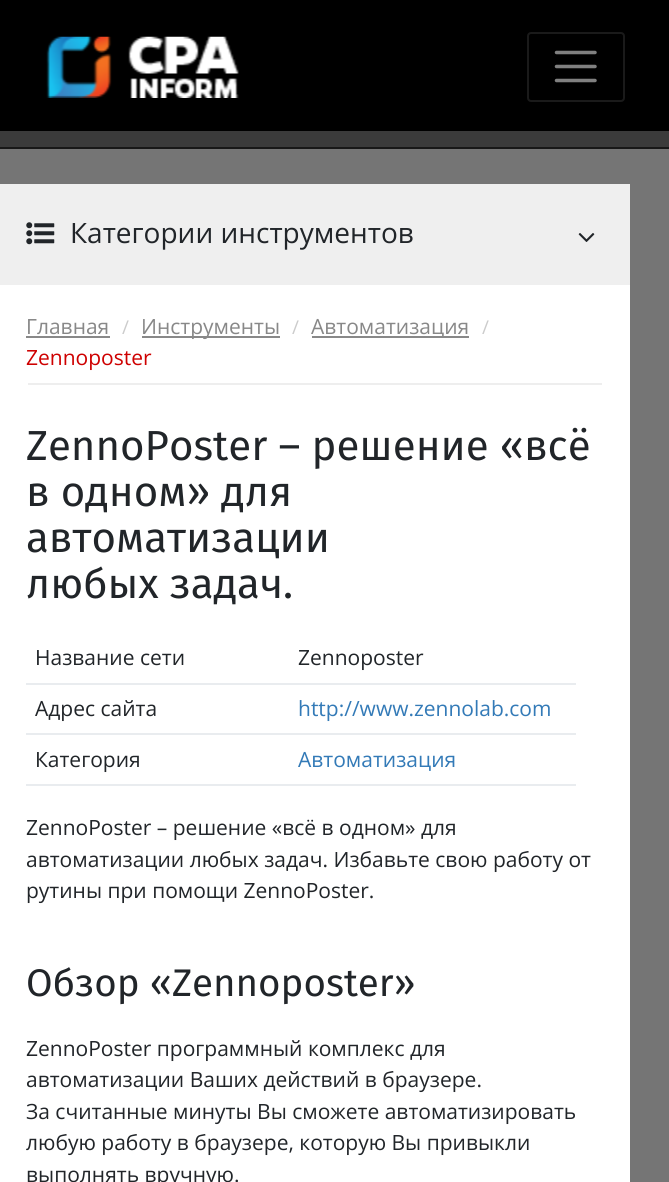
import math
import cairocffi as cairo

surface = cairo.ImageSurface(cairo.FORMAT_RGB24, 669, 1182)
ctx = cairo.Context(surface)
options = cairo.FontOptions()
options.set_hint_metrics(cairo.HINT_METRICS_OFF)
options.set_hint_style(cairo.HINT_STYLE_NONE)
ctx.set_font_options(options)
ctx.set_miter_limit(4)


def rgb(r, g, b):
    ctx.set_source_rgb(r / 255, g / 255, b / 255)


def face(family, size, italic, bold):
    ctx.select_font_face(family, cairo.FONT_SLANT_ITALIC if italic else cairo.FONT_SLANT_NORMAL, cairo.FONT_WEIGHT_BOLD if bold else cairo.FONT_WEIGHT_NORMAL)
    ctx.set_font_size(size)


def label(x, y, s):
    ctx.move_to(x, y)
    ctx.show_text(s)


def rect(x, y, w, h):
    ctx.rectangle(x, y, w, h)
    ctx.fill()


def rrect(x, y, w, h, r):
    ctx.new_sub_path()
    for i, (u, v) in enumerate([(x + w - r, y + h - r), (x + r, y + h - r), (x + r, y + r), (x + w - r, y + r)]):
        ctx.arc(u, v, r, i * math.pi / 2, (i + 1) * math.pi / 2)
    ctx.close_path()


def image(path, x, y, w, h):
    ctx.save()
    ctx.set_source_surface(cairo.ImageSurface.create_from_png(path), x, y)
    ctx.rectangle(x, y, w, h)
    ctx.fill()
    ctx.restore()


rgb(117, 117, 117)
ctx.paint()
rgb(0, 0, 0)
rect(0, 0, 669, 131)
image('image0.png', 46, 36, 193, 62)
rrect(528, 33, 96, 68, 3)
rgb(26, 26, 26)
ctx.stroke()
ctx.new_path()
ctx.move_to(556.5, 52.5)
ctx.line_to(595, 52.5)
ctx.move_to(556.5, 66.5)
ctx.line_to(595, 66.5)
ctx.move_to(556.5, 80.5)
ctx.line_to(595, 80.5)
rgb(128, 128, 128)
ctx.set_line_width(3.5)
ctx.set_line_cap(cairo.LINE_CAP_ROUND)
ctx.stroke()
rgb(59, 59, 59)
rect(0, 131, 669, 16)
rgb(24, 24, 24)
rect(0, 147, 669, 2)
rgb(239, 239, 239)
rect(0, 184, 630, 101)
image('image1.png', 26, 222, 29, 23)
face('Open Sans', 28, 0, 0)
rgb(33, 37, 41)
label(70, 243, 'Категории инструментов')
image('image2.png', 578, 233, 17, 9)
rgb(255, 255, 255)
rect(0, 285, 630, 897)
rgb(238, 238, 238)
rect(28, 383, 574, 2)
face('Open Sans', 21, 0, 0)
rgb(136, 136, 136)
label(26, 334, 'Главная')
rect(26, 336, 84, 2)
face('Open Sans', 19, 0, 0)
rgb(204, 204, 204)
label(122, 334, '/')
rgb(136, 136, 136)
rect(142, 336, 138, 2)
face('Open Sans', 21, 0, 0)
label(141, 334, 'Инструменты')
face('Open Sans', 19, 0, 0)
rgb(204, 204, 204)
label(292, 334, '/')
rgb(136, 136, 136)
rect(312, 336, 157, 2)
face('Open Sans', 21, 0, 0)
label(311, 334, 'Автоматизация')
face('Open Sans', 19, 0, 0)
rgb(204, 204, 204)
label(482, 334, '/')
face('Open Sans', 21, 0, 0)
rgb(206, 0, 0)
label(26, 365, 'Zennoposter')
face('Fira Sans', 42, 0, 0)
rgb(33, 37, 41)
label(26, 460, 'ZennoPoster – решение «всё')
label(26, 506, 'в одном» для')
label(26, 552, 'автоматизации')
label(26, 598, 'любых задач.')
face('Open Sans', 21, 0, 0)
label(35, 665, 'Название сети')
rgb(233, 236, 239)
rect(26, 683, 550, 2)
rgb(33, 37, 41)
label(298, 665, 'Zennoposter')
label(35, 716, 'Адрес сайта')
rgb(233, 236, 239)
rect(26, 733, 550, 2)
rgb(51, 122, 183)
label(298, 716, 'http://www.zennolab.com')
rgb(33, 37, 41)
label(35, 767, 'Категория')
rgb(233, 236, 239)
rect(26, 784, 550, 2)
rgb(51, 122, 183)
label(298, 767, 'Автоматизация')
rgb(33, 37, 41)
label(26, 835, 'ZennoPoster – решение «всё в одном» для')
label(26, 867, 'автоматизации любых задач. Избавьте свою работу от')
label(26, 898, 'рутины при помощи ZennoPoster.')
face('Fira Sans', 38.5, 0, 0)
label(26, 996, 'Обзор «Zennoposter»')
face('Open Sans', 21, 0, 0)
label(26, 1056, 'ZennoPoster программный комплекс для')
label(26, 1087, 'автоматизации Ваших действий в браузере.')
label(26, 1119, 'За считанные минуты Вы сможете автоматизировать')
label(26, 1150, 'любую работу в браузере, которую Вы привыкли')
label(26, 1182, 'выполнять вручную.')
surface.write_to_png('render.png')
